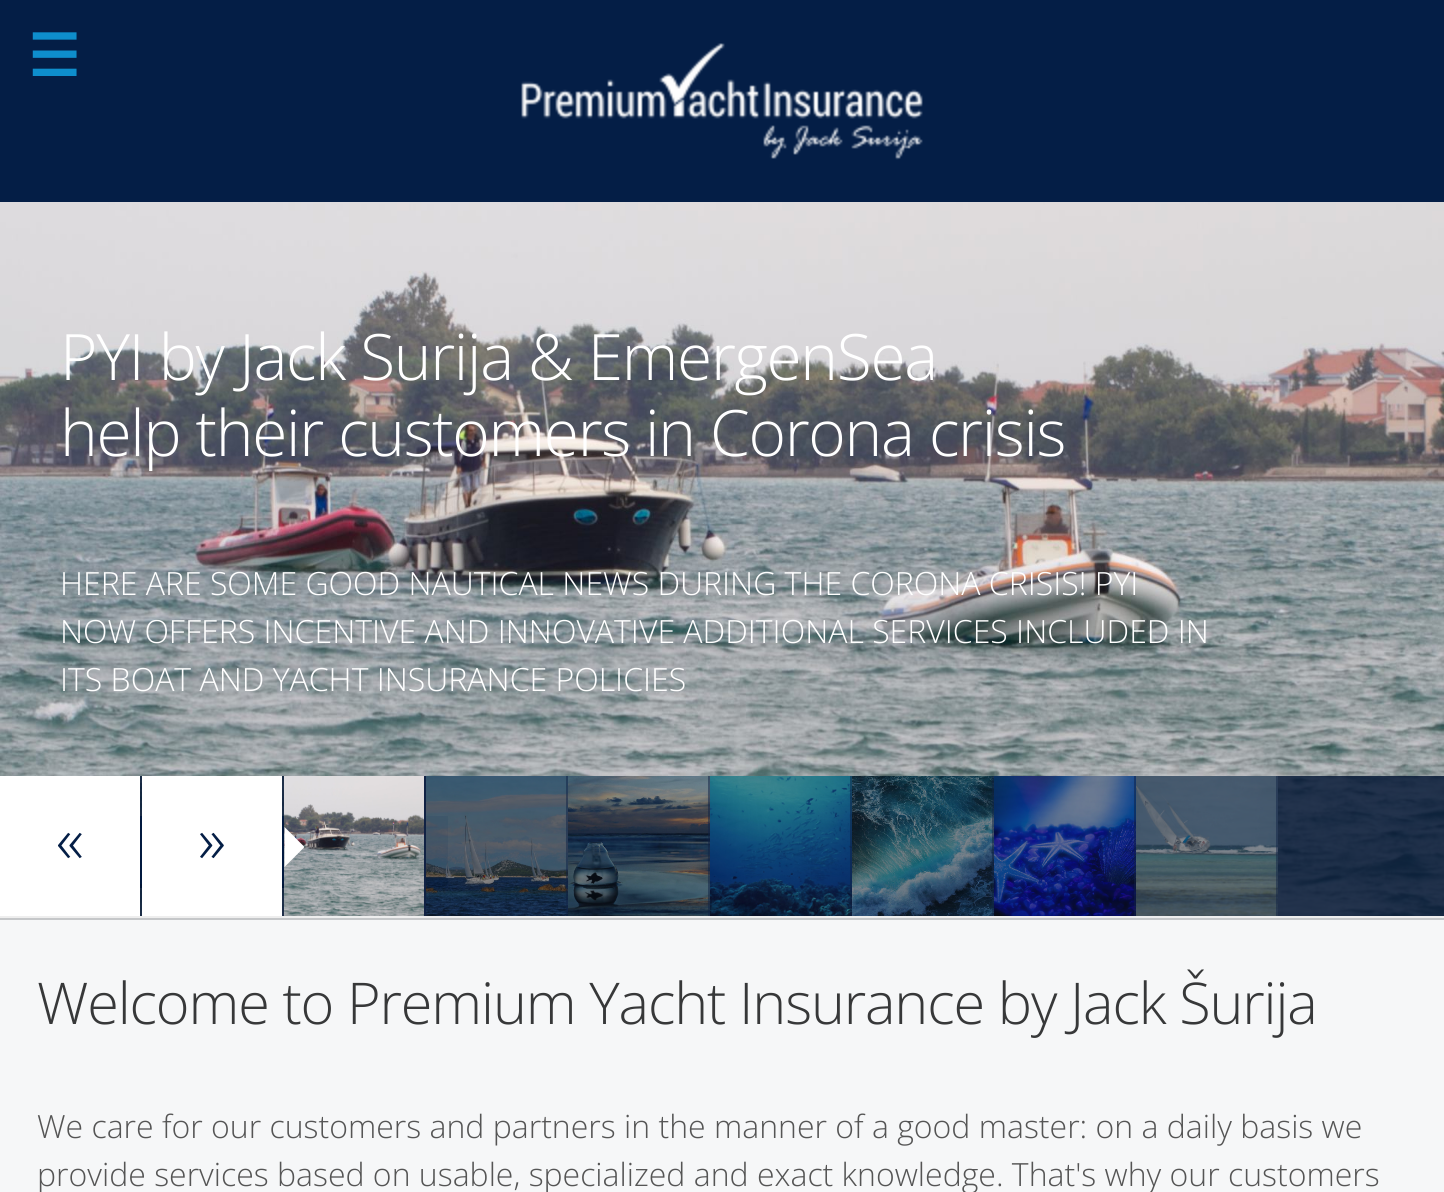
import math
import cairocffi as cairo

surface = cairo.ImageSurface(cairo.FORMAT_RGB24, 1444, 1192)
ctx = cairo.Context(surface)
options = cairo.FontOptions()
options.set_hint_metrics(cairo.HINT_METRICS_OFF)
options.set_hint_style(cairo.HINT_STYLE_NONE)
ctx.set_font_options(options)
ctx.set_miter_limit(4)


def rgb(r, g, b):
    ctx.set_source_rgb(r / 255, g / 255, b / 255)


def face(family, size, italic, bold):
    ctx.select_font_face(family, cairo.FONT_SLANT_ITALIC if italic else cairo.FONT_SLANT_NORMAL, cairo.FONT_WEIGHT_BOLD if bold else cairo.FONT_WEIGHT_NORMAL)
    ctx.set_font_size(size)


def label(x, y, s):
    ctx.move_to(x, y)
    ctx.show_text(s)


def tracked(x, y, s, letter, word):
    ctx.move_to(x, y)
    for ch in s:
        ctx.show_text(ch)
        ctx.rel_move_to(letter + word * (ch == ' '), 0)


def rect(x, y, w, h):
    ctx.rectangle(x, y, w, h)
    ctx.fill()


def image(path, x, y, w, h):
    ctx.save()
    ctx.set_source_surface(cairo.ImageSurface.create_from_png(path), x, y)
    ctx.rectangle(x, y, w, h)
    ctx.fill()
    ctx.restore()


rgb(4, 30, 70)
ctx.paint()
face('DejaVu Sans', 57.6, 0, 1)
rgb(14, 142, 204)
label(28, 76, '☰')
image('image0.png', 521, 43, 402, 117)
image('image1.png', 0, 202, 1444, 714)
face('Open Sans Light', 64, 0, 0)
rgb(255, 255, 255)
tracked(60, 380, 'PYI by Jack Surija & EmergenSea', -1.3, 0)
tracked(60, 456, 'help their customers in Corona crisis', -1.3, 0)
face('Open Sans Light', 32, 0, 0)
label(60, 595, 'HERE ARE SOME GOOD NAUTICAL NEWS DURING THE CORONA CRISIS! PYI')
label(60, 643, 'NOW OFFERS INCENTIVE AND INNOVATIVE ADDITIONAL SERVICES INCLUDED IN')
label(60, 691, 'ITS BOAT AND YACHT INSURANCE POLICIES')
rgb(6, 52, 123)
rect(140, 816, 308, 68)
rgb(4, 30, 70)
rect(140, 884, 308, 4)
ctx.set_source_rgba(0.004, 0.078, 0.196, 0.82)
rect(140, 776, 1304, 140)
rgb(238, 238, 238)
rect(0, 916, 1444, 2)
rgb(255, 255, 255)
rect(0, 776, 140, 140)
face('Open Sans Light', 64, 0, 0)
rgb(4, 30, 70)
label(56, 863, '«')
rgb(255, 255, 255)
rect(142, 776, 140, 140)
rgb(4, 30, 70)
label(198, 863, '»')
image('image2.png', 284, 776, 140, 140)
rgb(17, 34, 68)
rect(424, 776, 2, 140)
rgb(255, 255, 255)
ctx.new_path()
ctx.move_to(284.5, 867)
ctx.line_to(284.5, 827)
ctx.line_to(304.5, 847)
ctx.close_path()
ctx.fill()
ctx.set_source_rgba(0, 0, 0, 0.5)
rect(426, 776, 142, 140)
image('image3.png', 426, 776, 142, 140)
ctx.set_source_rgba(0.067, 0.133, 0.267, 0.5)
rect(566, 776, 2, 140)
ctx.set_source_rgba(0, 0, 0, 0.5)
rect(568, 776, 142, 140)
image('image4.png', 568, 776, 142, 140)
ctx.set_source_rgba(0.067, 0.133, 0.267, 0.5)
rect(708, 776, 2, 140)
ctx.set_source_rgba(0, 0, 0, 0.5)
rect(710, 776, 142, 140)
image('image5.png', 710, 776, 142, 140)
ctx.set_source_rgba(0.067, 0.133, 0.267, 0.5)
rect(850, 776, 2, 140)
ctx.set_source_rgba(0, 0, 0, 0.5)
rect(852, 776, 142, 140)
image('image6.png', 852, 776, 142, 140)
ctx.set_source_rgba(0.067, 0.133, 0.267, 0.5)
rect(992, 776, 2, 140)
ctx.set_source_rgba(0, 0, 0, 0.5)
rect(994, 776, 142, 140)
image('image7.png', 994, 776, 142, 140)
ctx.set_source_rgba(0.067, 0.133, 0.267, 0.5)
rect(1134, 776, 2, 140)
ctx.set_source_rgba(0, 0, 0, 0.5)
rect(1136, 776, 142, 140)
image('image8.png', 1136, 776, 142, 140)
ctx.set_source_rgba(0.067, 0.133, 0.267, 0.5)
rect(1276, 776, 2, 140)
rgb(246, 247, 248)
rect(0, 920, 1444, 272)
rgb(197, 199, 201)
rect(0, 918, 1444, 2)
face('Open Sans Light', 57.6, 0, 0)
rgb(55, 56, 57)
tracked(37, 1024, 'Welcome to Premium Yacht Insurance by Jack Šurija', -1.15, 0)
face('Open Sans Light', 32, 0, 0)
rgb(85, 85, 85)
label(37, 1138, 'We care for our customers and partners in the manner of a good master: on a daily basis we')
label(37, 1186, 'provide services based on usable, specialized and exact knowledge. That\'s why our customers')
surface.write_to_png('render.png')
